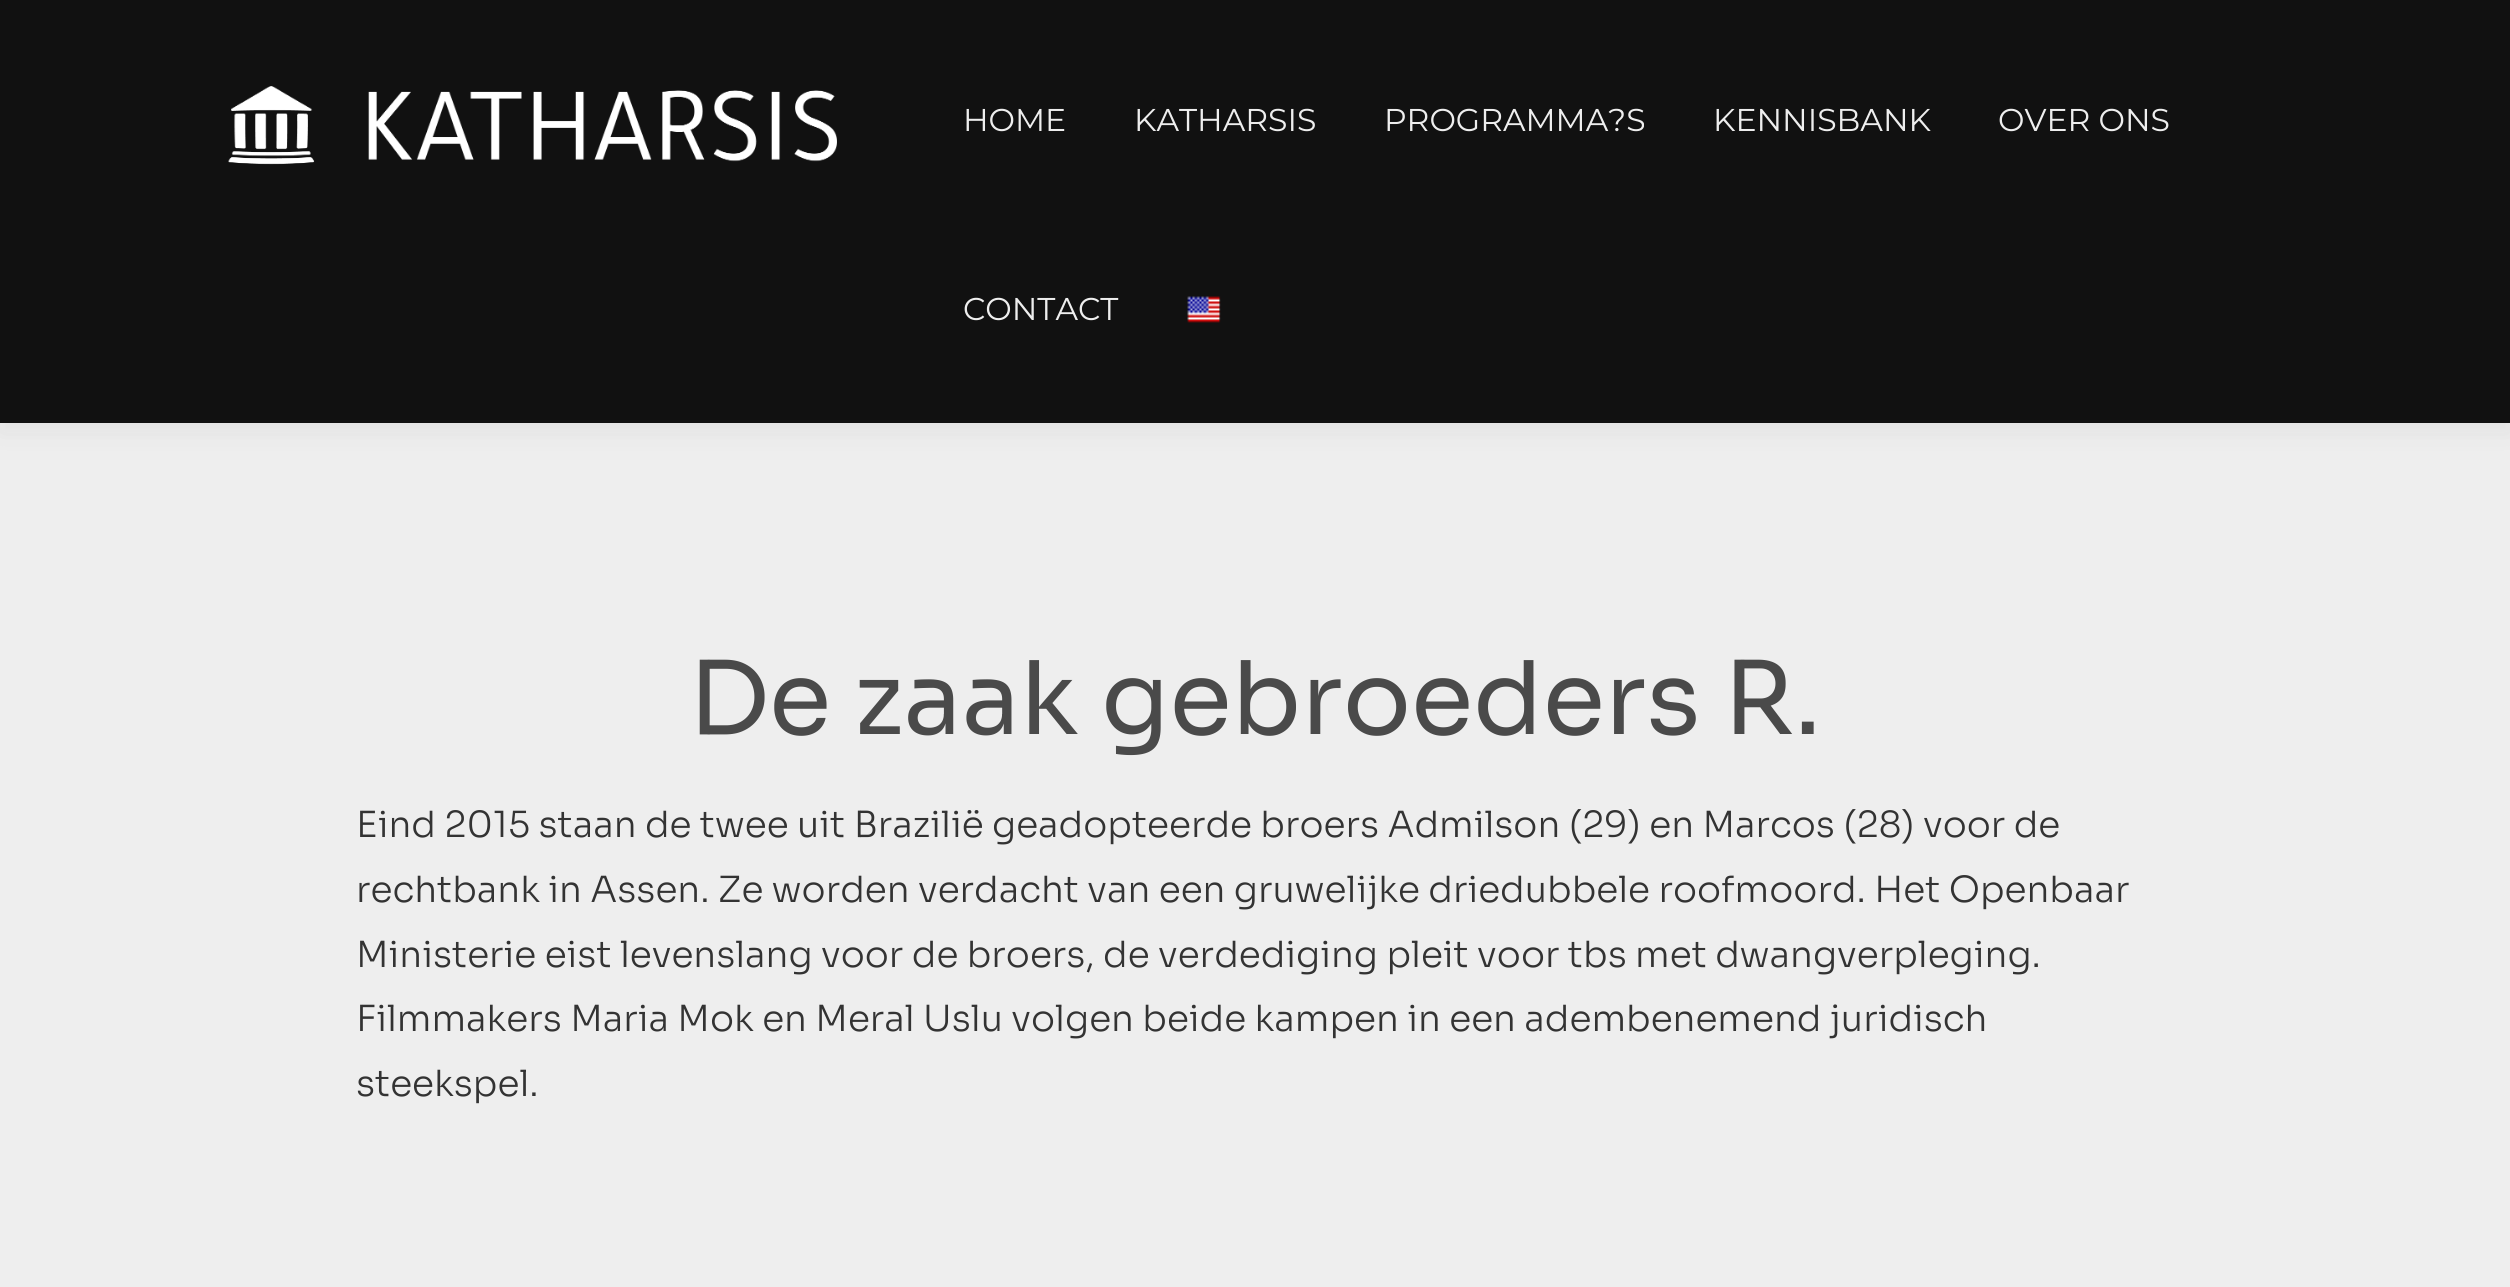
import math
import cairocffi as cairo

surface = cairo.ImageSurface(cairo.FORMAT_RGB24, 2510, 1287)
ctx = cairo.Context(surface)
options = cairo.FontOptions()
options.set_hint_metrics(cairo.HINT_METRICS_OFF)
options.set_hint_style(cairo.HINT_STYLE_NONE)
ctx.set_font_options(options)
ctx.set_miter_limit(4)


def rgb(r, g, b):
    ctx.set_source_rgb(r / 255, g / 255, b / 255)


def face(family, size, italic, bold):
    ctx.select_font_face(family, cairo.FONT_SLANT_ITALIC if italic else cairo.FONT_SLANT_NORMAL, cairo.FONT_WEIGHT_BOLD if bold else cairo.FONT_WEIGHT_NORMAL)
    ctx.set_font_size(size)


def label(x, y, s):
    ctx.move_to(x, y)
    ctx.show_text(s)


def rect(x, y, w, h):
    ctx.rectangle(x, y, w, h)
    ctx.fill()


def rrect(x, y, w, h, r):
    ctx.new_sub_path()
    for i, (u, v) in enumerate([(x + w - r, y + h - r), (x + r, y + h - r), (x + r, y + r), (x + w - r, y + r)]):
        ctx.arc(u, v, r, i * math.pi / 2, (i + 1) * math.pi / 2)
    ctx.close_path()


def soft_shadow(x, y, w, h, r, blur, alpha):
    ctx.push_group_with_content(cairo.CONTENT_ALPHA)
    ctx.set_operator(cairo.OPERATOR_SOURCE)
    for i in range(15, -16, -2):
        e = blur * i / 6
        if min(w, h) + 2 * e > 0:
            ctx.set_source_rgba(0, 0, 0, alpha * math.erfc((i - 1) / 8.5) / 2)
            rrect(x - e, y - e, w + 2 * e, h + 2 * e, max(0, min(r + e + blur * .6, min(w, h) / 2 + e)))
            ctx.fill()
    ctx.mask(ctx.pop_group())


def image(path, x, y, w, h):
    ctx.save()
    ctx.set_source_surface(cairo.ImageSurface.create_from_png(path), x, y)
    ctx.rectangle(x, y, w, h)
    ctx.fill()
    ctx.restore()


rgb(238, 238, 238)
ctx.paint()
rgb(50, 50, 50)
soft_shadow(0, 11, 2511, 423, 0, 11, 0.06)
rgb(17, 17, 17)
rect(0, 0, 2510, 423)
image('image0.png', 228, 86, 609, 79)
face('Montserrat', 31.5, 0, 0)
rgb(238, 238, 238)
label(963, 131, 'HOME')
label(1134, 131, 'KATHARSIS')
label(1384, 131, 'PROGRAMMA?S')
label(1713, 131, 'KENNISBANK')
label(1998, 131, 'OVER ONS')
label(963, 320, 'CONTACT')
image('image1.png', 1187, 296, 34, 27)
face('Sora', 101.25, 0, 0)
rgb(74, 74, 74)
label(689, 734, 'De zaak gebroeders R.')
face('Sora Light', 36, 0, 0)
rgb(51, 51, 51)
label(356, 837, 'Eind 2015 staan de twee uit Brazilië geadopteerde broers Admilson (29) en Marcos (28) voor de')
label(356, 902, 'rechtbank in Assen. Ze worden verdacht van een gruwelijke driedubbele roofmoord. Het Openbaar')
label(356, 967, 'Ministerie eist levenslang voor de broers, de verdediging pleit voor tbs met dwangverpleging.')
label(356, 1031, 'Filmmakers Maria Mok en Meral Uslu volgen beide kampen in een adembenemend juridisch')
label(356, 1096, 'steekspel.')
surface.write_to_png('render.png')
